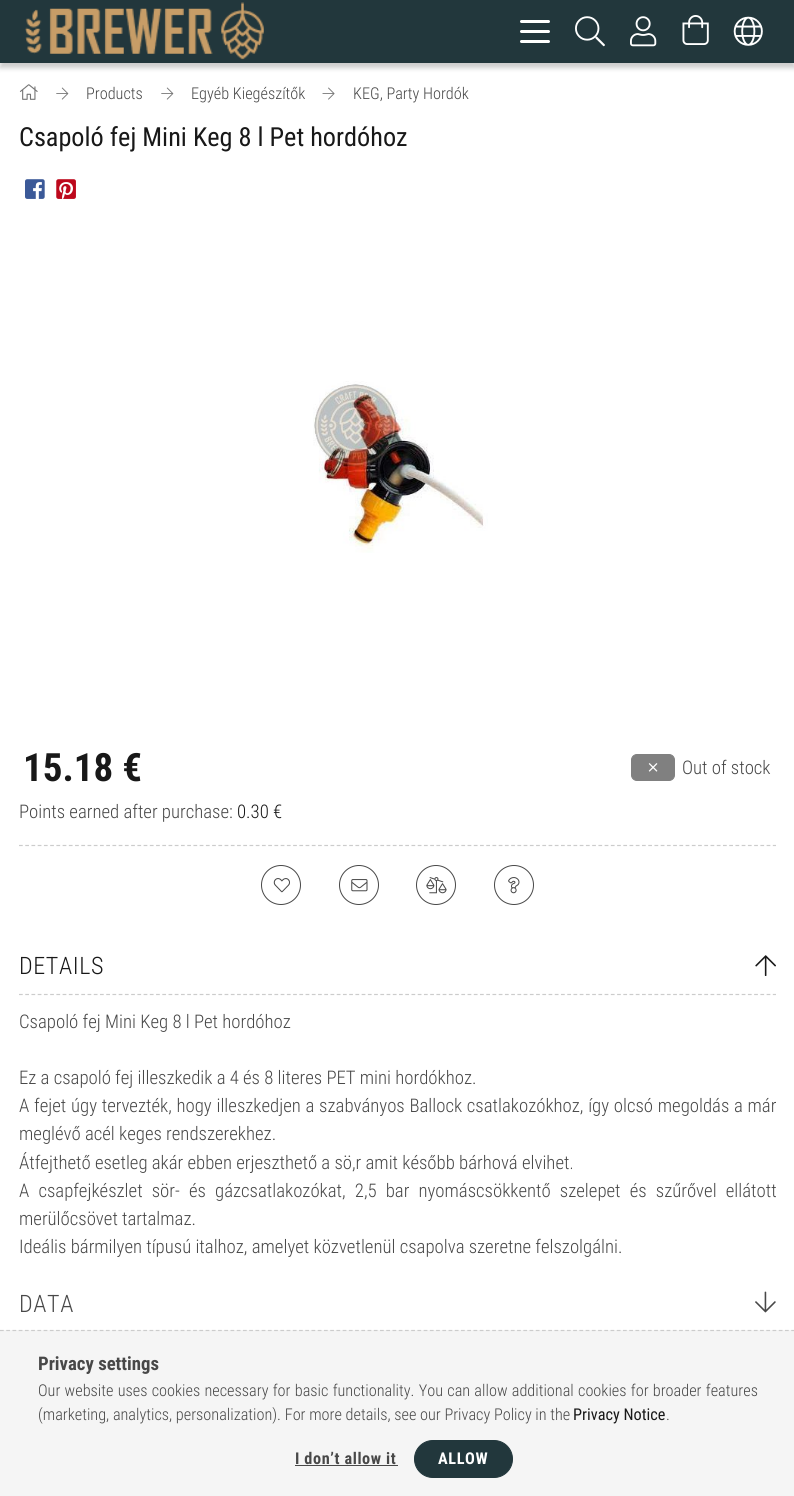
import math
import cairocffi as cairo

surface = cairo.ImageSurface(cairo.FORMAT_RGB24, 794, 1496)
ctx = cairo.Context(surface)
options = cairo.FontOptions()
options.set_hint_metrics(cairo.HINT_METRICS_OFF)
options.set_hint_style(cairo.HINT_STYLE_NONE)
ctx.set_font_options(options)
ctx.set_miter_limit(4)


def rgb(r, g, b):
    ctx.set_source_rgb(r / 255, g / 255, b / 255)


def face(family, size, italic, bold):
    ctx.select_font_face(family, cairo.FONT_SLANT_ITALIC if italic else cairo.FONT_SLANT_NORMAL, cairo.FONT_WEIGHT_BOLD if bold else cairo.FONT_WEIGHT_NORMAL)
    ctx.set_font_size(size)


def label(x, y, s):
    ctx.move_to(x, y)
    ctx.show_text(s)


def tracked(x, y, s, letter, word):
    ctx.move_to(x, y)
    for ch in s:
        ctx.show_text(ch)
        ctx.rel_move_to(letter + word * (ch == ' '), 0)


def rect(x, y, w, h):
    ctx.rectangle(x, y, w, h)
    ctx.fill()


def rrect(x, y, w, h, r):
    ctx.new_sub_path()
    for i, (u, v) in enumerate([(x + w - r, y + h - r), (x + r, y + h - r), (x + r, y + r), (x + w - r, y + r)]):
        ctx.arc(u, v, r, i * math.pi / 2, (i + 1) * math.pi / 2)
    ctx.close_path()


def soft_shadow(x, y, w, h, r, blur, alpha):
    ctx.push_group_with_content(cairo.CONTENT_ALPHA)
    ctx.set_operator(cairo.OPERATOR_SOURCE)
    for i in range(15, -16, -2):
        e = blur * i / 6
        if min(w, h) + 2 * e > 0:
            ctx.set_source_rgba(0, 0, 0, alpha * math.erfc((i - 1) / 8.5) / 2)
            rrect(x - e, y - e, w + 2 * e, h + 2 * e, max(0, min(r + e + blur * .6, min(w, h) / 2 + e)))
            ctx.fill()
    ctx.mask(ctx.pop_group())


def image(path, x, y, w, h):
    ctx.save()
    ctx.set_source_surface(cairo.ImageSurface.create_from_png(path), x, y)
    ctx.rectangle(x, y, w, h)
    ctx.fill()
    ctx.restore()


rgb(255, 255, 255)
ctx.paint()
rgb(0, 0, 0)
soft_shadow(0, 5, 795, 63, 0, 2.5, 0.2)
rgb(34, 55, 60)
rect(0, 0, 794, 63)
image('image0.png', 25, 2, 239, 58)
rgb(255, 255, 255)
rrect(520, 20, 30, 3, 1.5)
ctx.fill()
rrect(520, 30, 30, 3, 1.5)
ctx.fill()
rrect(520, 40, 30, 3, 1.5)
ctx.fill()
image('image1.png', 575, 16, 30, 31)
image('image2.png', 630, 16, 27, 31)
image('image3.png', 682, 15, 27, 30)
image('image4.png', 733, 16, 30, 30)
image('image5.png', 19, 84, 19, 16)
image('image6.png', 56, 87, 13, 13)
face('Roboto Condensed Light', 16.25, 0, 0)
rgb(72, 72, 72)
label(86, 99, 'Products')
image('image6.png', 161, 87, 13, 13)
label(191, 99, 'Egyéb Kiegészítők')
image('image7.png', 322, 87, 13, 13)
label(353, 99, 'KEG, Party Hordók')
face('Roboto Condensed', 26.25, 0, 0)
rgb(24, 24, 24)
label(19, 146, 'Csapoló fej Mini Keg 8 l Pet hordóhoz')
image('image8.png', 25, 179, 20, 20)
image('image9.png', 56, 179, 20, 20)
image('image10.png', 313, 381, 175, 172)
face('Roboto Condensed', 39, 0, 1)
label(23, 781, '15.18 €')
rgb(128, 128, 128)
rrect(631.5, 754.5, 43, 26, 5.5)
ctx.fill_preserve()
ctx.set_line_width(1)
ctx.stroke()
image('image11.png', 648, 763, 10, 9)
face('Roboto Condensed Light', 18.75, 0, 0)
rgb(72, 72, 72)
label(682, 774, 'Out of stock')
label(19, 818, 'Points earned after purchase:')
rgb(24, 24, 24)
label(237, 818, '0.30 €')
ctx.new_path()
ctx.move_to(19, 845.5)
ctx.line_to(776, 845.5)
rgb(204, 204, 204)
ctx.set_line_width(1.2)
ctx.set_dash([3.75, 2.48])
ctx.stroke()
ctx.arc(281, 885, 19.5, 0, 2 * math.pi)
rgb(72, 72, 72)
ctx.set_line_width(1)
ctx.set_dash([])
ctx.stroke()
image('image12.png', 273, 878, 17, 15)
ctx.arc(359, 885, 19.5, 0, 2 * math.pi)
ctx.stroke()
image('image13.png', 351, 879, 17, 13)
ctx.arc(436, 885, 19.5, 0, 2 * math.pi)
ctx.stroke()
image('image14.png', 426, 877, 21, 17)
ctx.arc(514, 885, 19.5, 0, 2 * math.pi)
ctx.stroke()
image('image15.png', 508, 877, 12, 17)
ctx.new_path()
ctx.move_to(19, 994.5)
ctx.line_to(776, 994.5)
rgb(204, 204, 204)
ctx.set_line_width(1.2)
ctx.set_dash([3.75, 2.48])
ctx.stroke()
face('Roboto Condensed Light', 24, 0, 0)
rgb(24, 24, 24)
tracked(19, 974, 'DETAILS', 0.6, 0)
image('image16.png', 755, 955, 21, 21)
face('Roboto Condensed Light', 18.75, 0, 0)
rgb(72, 72, 72)
label(19, 1028, 'Csapoló fej Mini Keg 8 l Pet hordóhoz')
label(19, 1084, 'Ez a csapoló fej illeszkedik a 4 és 8 literes PET mini hordókhoz.')
tracked(19, 1112, 'A fejet úgy tervezték, hogy illeszkedjen a szabványos Ballock csatlakozókhoz, így olcsó megoldás a már', 0, 0.5)
label(19, 1140, 'meglévő acél keges rendszerekhez.')
label(19, 1169, 'Átfejthető esetleg akár ebben erjeszthető a sö,r amit később bárhová elvihet.')
tracked(19, 1197, 'A csapfejkészlet sör- és gázcsatlakozókat, 2,5 bar nyomáscsökkentő szelepet és szűrővel ellátott', 0, 4.9)
label(19, 1225, 'merülőcsövet tartalmaz.')
label(19, 1253, 'Ideális bármilyen típusú italhoz, amelyet közvetlenül csapolva szeretne felszolgálni.')
face('Roboto Condensed Light', 24, 0, 0)
tracked(19, 1312, 'DATA', 0.6, 0)
image('image17.png', 755, 1291, 21, 22)
rgb(245, 245, 245)
rect(0, 1330, 794, 166)
ctx.new_path()
ctx.move_to(0, 1330.5)
ctx.line_to(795, 1330.5)
rgb(204, 204, 204)
ctx.stroke()
face('Roboto Condensed', 18.75, 0, 1)
rgb(72, 72, 72)
label(38, 1370, 'Privacy settings')
face('Roboto Condensed Light', 16.25, 0, 0)
tracked(38, 1396, 'Our website uses cookies necessary for basic functionality. You can allow additional cookies for broader features', 0, 0.6)
label(38, 1420, '(marketing, analytics, personalization). For more details, see our Privacy Policy in the')
face('Roboto Condensed', 16.25, 0, 0)
rgb(24, 24, 24)
label(573, 1420, 'Privacy Notice')
face('Roboto Condensed Light', 16.25, 0, 0)
rgb(72, 72, 72)
label(666, 1420, '.')
face('Roboto Condensed', 16.25, 0, 1)
tracked(295, 1464, 'I don’t allow it', 0.6, 0)
rect(295, 1465, 103, 1)
rgb(34, 55, 60)
rrect(414.5, 1440.5, 98, 37, 18.5)
ctx.fill_preserve()
ctx.set_line_width(1)
ctx.set_dash([])
ctx.stroke()
rgb(255, 255, 255)
tracked(438, 1464, 'ALLOW', 0.6, 0)
surface.write_to_png('render.png')
